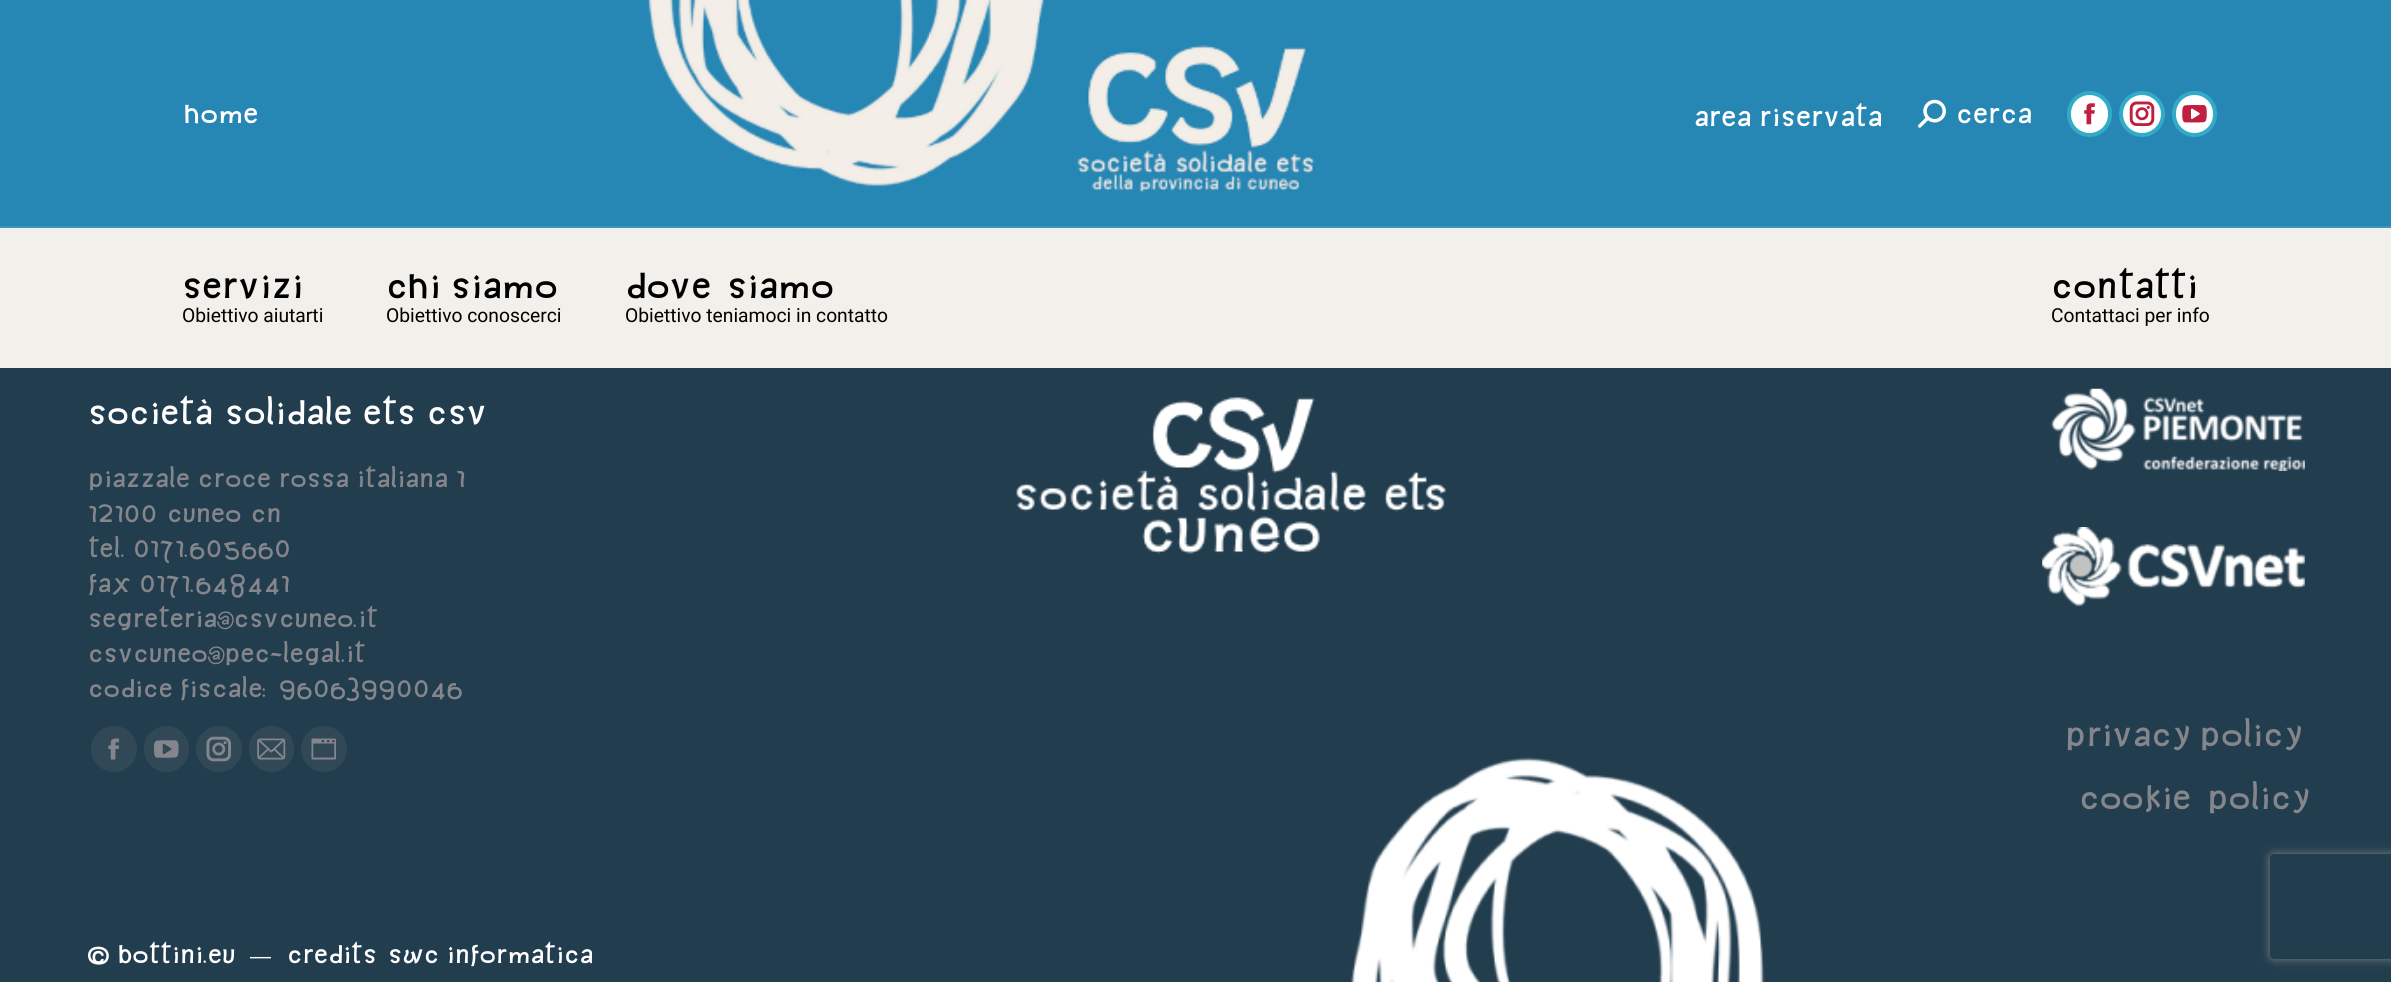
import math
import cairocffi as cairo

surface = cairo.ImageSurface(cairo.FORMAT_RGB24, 2391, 982)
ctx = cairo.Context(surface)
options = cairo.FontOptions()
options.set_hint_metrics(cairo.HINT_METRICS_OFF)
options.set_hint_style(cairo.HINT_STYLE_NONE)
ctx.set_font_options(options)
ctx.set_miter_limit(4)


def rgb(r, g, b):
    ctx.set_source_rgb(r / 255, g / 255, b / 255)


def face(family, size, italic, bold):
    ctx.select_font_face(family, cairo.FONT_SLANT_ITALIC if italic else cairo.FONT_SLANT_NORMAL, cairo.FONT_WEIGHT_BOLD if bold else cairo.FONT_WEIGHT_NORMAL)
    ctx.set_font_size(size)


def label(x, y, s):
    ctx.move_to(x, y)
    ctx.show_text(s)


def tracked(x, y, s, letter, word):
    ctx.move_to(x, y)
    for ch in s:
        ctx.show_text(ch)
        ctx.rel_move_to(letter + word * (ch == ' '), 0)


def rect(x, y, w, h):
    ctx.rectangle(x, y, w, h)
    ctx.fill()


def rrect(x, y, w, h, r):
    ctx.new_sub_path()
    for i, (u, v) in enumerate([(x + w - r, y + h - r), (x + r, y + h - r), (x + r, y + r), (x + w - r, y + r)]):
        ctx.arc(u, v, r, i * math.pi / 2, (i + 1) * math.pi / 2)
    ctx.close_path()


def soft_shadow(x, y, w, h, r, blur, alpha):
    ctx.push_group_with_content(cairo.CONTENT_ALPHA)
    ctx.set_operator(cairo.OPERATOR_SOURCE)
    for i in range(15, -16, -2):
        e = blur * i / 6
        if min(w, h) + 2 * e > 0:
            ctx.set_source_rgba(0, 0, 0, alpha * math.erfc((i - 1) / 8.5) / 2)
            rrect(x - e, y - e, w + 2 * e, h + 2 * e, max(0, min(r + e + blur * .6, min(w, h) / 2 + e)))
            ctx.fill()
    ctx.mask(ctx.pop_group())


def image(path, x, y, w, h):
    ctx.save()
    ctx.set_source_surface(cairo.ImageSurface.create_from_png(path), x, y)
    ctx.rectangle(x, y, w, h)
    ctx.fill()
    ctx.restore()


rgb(34, 61, 78)
ctx.paint()
rgb(242, 240, 234)
rect(0, 228, 2391, 140)
rgb(38, 134, 180)
rect(0, 0, 2391, 226)
image('image0.png', 647, 0, 668, 193)
face('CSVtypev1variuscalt', 22.75, 0, 1)
rgb(255, 255, 255)
label(184, 123, 'home')
tracked(1694, 126, 'Area riservata', 0, -1)
image('image1.png', 1918, 99, 28, 29)
label(1956, 123, 'cerca')
rrect(2069, 93, 41, 42, 20.5)
ctx.fill_preserve()
rgb(50, 171, 200)
ctx.set_line_width(4)
ctx.stroke()
image('image2.png', 2084, 103, 11, 22)
rgb(255, 255, 255)
ctx.arc(2142, 114, 21, 0, 2 * math.pi)
ctx.fill_preserve()
rgb(50, 171, 200)
ctx.stroke()
image('image3.png', 2129, 101, 26, 25)
rgb(255, 255, 255)
rrect(2174, 93, 41, 42, 20.5)
ctx.fill_preserve()
rgb(50, 171, 200)
ctx.stroke()
image('image4.png', 2182, 105, 25, 18)
rgb(64, 149, 189)
rect(0, 226, 2391, 2)
face('CSVtypev1variuscalt', 29.75, 0, 1)
rgb(0, 0, 0)
label(182, 298, 'Servizi')
face('Roboto', 19.25, 0, 0)
label(182, 322, 'Obiettivo aiutarti')
face('CSVtypev1variuscalt', 29.75, 0, 1)
tracked(386, 298, 'Chi siamo', 0, -2)
face('Roboto', 19.25, 0, 0)
label(386, 322, 'Obiettivo conoscerci')
face('CSVtypev1variuscalt', 29.75, 0, 1)
tracked(625, 298, 'Dove siamo', 0, 4)
face('Roboto', 19.25, 0, 0)
label(625, 322, 'Obiettivo teniamoci in contatto')
face('CSVtypev1variuscalt', 29.75, 0, 1)
label(2051, 298, 'Contatti')
face('Roboto', 19.25, 0, 0)
label(2051, 322, 'Contattaci per info')
image('image5.png', 1350, 757, 415, 225)
face('CSVtypev1variuscalt', 28, 0, 1)
rgb(255, 255, 255)
tracked(88, 424, 'Società Solidale ets CSV', 0, -0.5)
face('CSVtypev1variuscalt', 21, 0, 1)
rgb(133, 134, 140)
tracked(88, 487, 'Piazzale Croce Rossa Italiana 1', 0, -0.5)
tracked(88, 522, '12100 Cuneo CN', 0, 1)
tracked(88, 557, 'Tel. 0171.605660', 0, -1)
label(88, 592, 'Fax 0171.648441')
label(88, 627, 'segreteria@csvcuneo.it')
label(88, 662, 'csvcuneo@pec-legal.it')
tracked(88, 697, 'Codice Fiscale:', 0, -1)
tracked(279, 697, '96063990046', 0, -1)
rgb(49, 72, 87)
ctx.new_path()
ctx.arc(114, 749, 23, 0, 2 * math.pi)
ctx.fill()
image('image6.png', 108, 738, 11, 22)
rrect(144, 726, 45, 46, 22.5)
ctx.fill()
image('image7.png', 154, 740, 25, 18)
ctx.arc(219, 749, 23, 0, 2 * math.pi)
ctx.fill()
image('image8.png', 206, 736, 25, 26)
rrect(249, 726, 45, 46, 22.5)
ctx.fill()
image('image9.png', 257, 738, 29, 22)
ctx.arc(324, 749, 23, 0, 2 * math.pi)
ctx.fill()
image('image10.png', 311, 738, 25, 22)
image('image11.png', 1016, 397, 430, 157)
image('image12.png', 2050, 388, 255, 83)
image('image13.png', 2042, 527, 263, 80)
face('CSVtypev1variuscalt', 28, 0, 1)
rgb(133, 134, 140)
tracked(2065, 746, 'privacy policy', 0, -2)
tracked(2079, 809, 'cookie policy', 0, 5)
face('CSVtypev1variuscalt', 21, 0, 1)
rgb(255, 255, 255)
label(88, 963, '© Bottini.eu')
face('Liberation Sans', 21, 0, 0)
label(250, 963, '—')
face('CSVtypev1variuscalt', 21, 0, 1)
label(287, 963, 'Credits')
tracked(388, 963, 'Swc Informatica', 0, -1)
ctx.save()
ctx.set_fill_rule(cairo.FILL_RULE_EVEN_ODD)
ctx.new_path()
ctx.move_to(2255, 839)
ctx.line_to(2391, 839)
ctx.line_to(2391, 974)
ctx.line_to(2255, 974)
ctx.close_path()
ctx.move_to(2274, 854)
ctx.line_to(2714, 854)
ctx.curve_to(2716, 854, 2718, 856, 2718, 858)
ctx.line_to(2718, 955)
ctx.curve_to(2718, 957, 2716, 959, 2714, 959)
ctx.line_to(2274, 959)
ctx.curve_to(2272, 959, 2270, 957, 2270, 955)
ctx.line_to(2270, 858)
ctx.curve_to(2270, 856, 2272, 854, 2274, 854)
ctx.close_path()
ctx.clip()
rgb(128, 128, 128)
soft_shadow(2270, 854, 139, 105, 4, 4.5, 1)
ctx.restore()
surface.write_to_png('render.png')
